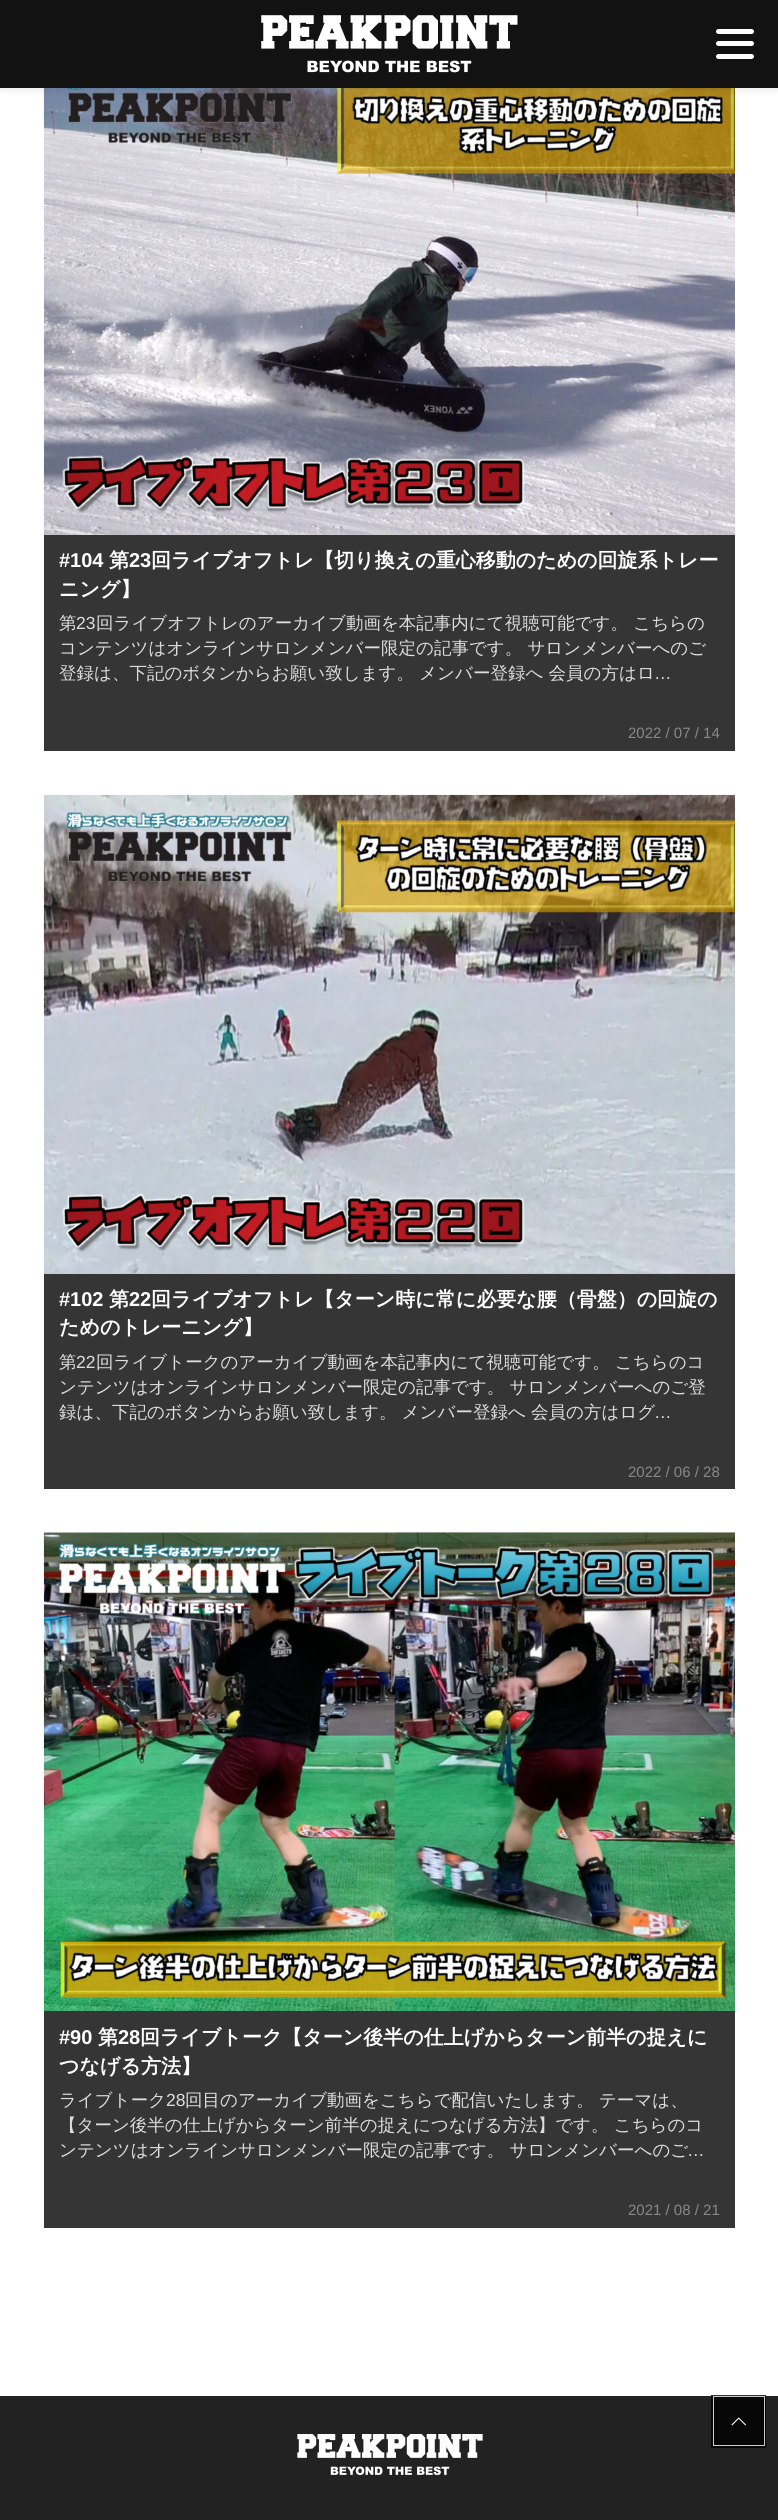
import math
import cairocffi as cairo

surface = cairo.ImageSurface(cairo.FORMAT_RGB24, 778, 2520)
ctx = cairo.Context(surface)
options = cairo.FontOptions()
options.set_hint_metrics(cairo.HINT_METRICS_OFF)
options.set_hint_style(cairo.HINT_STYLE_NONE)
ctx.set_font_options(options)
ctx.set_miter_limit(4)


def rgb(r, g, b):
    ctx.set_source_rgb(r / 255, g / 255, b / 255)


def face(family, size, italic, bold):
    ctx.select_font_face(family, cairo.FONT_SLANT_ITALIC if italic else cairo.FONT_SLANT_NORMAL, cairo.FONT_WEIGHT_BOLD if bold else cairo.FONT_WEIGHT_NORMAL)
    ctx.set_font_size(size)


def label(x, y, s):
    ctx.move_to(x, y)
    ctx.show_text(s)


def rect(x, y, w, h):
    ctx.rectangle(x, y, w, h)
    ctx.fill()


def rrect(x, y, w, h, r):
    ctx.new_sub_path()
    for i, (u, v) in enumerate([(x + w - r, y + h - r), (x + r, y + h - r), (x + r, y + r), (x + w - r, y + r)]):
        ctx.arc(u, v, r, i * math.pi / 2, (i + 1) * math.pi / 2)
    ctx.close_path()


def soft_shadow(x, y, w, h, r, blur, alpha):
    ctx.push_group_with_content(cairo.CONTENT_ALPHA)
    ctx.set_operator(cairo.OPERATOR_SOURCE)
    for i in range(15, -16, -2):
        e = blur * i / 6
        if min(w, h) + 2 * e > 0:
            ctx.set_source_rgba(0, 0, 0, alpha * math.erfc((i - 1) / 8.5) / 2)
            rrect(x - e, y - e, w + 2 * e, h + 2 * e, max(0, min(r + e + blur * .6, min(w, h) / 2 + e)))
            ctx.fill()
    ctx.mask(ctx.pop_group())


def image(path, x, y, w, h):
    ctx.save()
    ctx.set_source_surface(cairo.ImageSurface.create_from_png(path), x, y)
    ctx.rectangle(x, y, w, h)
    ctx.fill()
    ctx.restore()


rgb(255, 255, 255)
ctx.paint()
rgb(200, 200, 200)
rect(44, 534, 691, 1)
image('image1.png', 43, 88, 692, 447)
rgb(0, 0, 0)
soft_shadow(0, 1, 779, 88, 0, 4, 0.1)
rgb(18, 18, 18)
rect(0, 0, 778, 88)
image('image0.png', 261, 15, 257, 58)
rgb(255, 255, 255)
rrect(716, 29, 38, 5, 2.5)
ctx.fill()
rrect(716, 41, 38, 5, 2.5)
ctx.fill()
rrect(716, 54, 38, 5, 2.5)
ctx.fill()
rgb(53, 53, 53)
rect(44, 535, 691, 216)
face('Liberation Sans', 20, 0, 1)
rgb(255, 255, 255)
label(59, 567, '#104')
face('WenQuanYi Zen Hei', 20, 0, 1)
label(109, 567, '第')
face('Liberation Sans', 20, 0, 1)
label(129, 567, '23')
face('WenQuanYi Zen Hei', 20, 0, 1)
label(151, 567, '回ライブオフトレ【切り換えの重心移動のための回旋系トレー')
label(59, 596, 'ニング】')
face('WenQuanYi Zen Hei Medium', 17.5, 0, 0)
rgb(222, 222, 222)
label(59, 629, '第')
face('Liberation Sans', 17.5, 0, 0)
label(76, 629, '23')
face('WenQuanYi Zen Hei Medium', 17.5, 0, 0)
label(96, 629, '回ライブオフトレのアーカイブ動画を本記事内にて視聴可能です。 こちらの')
label(59, 654, 'コンテンツはオンラインサロンメンバー限定の記事です。 サロンメンバーへのご')
label(59, 679, '登録は、下記のボタンからお願い致します。 メンバー登録へ 会員の方はロ')
face('Liberation Sans', 17.5, 0, 0)
label(654, 679, '…')
face('Liberation Sans', 15, 0, 0)
rgb(136, 136, 136)
label(628, 738, '2022 / 07 / 14')
rgb(53, 53, 53)
rect(44, 1274, 691, 215)
rgb(200, 200, 200)
rect(44, 1273, 691, 1)
image('image2.png', 43, 794, 692, 480)
face('Liberation Sans', 20, 0, 1)
rgb(255, 255, 255)
label(59, 1306, '#102')
face('WenQuanYi Zen Hei', 20, 0, 1)
label(109, 1306, '第')
face('Liberation Sans', 20, 0, 1)
label(129, 1306, '22')
face('WenQuanYi Zen Hei', 20, 0, 1)
label(151, 1306, '回ライブオフトレ【ターン時に常に必要な腰（骨盤）の回旋の')
label(59, 1334, 'ためのトレーニング】')
face('WenQuanYi Zen Hei Medium', 17.5, 0, 0)
rgb(222, 222, 222)
label(59, 1368, '第')
face('Liberation Sans', 17.5, 0, 0)
label(76, 1368, '22')
face('WenQuanYi Zen Hei Medium', 17.5, 0, 0)
label(96, 1368, '回ライブトークのアーカイブ動画を本記事内にて視聴可能です。 こちらのコ')
label(59, 1393, 'ンテンツはオンラインサロンメンバー限定の記事です。 サロンメンバーへのご登')
label(59, 1418, '録は、下記のボタンからお願い致します。 メンバー登録へ 会員の方はログ')
face('Liberation Sans', 17.5, 0, 0)
label(654, 1418, '…')
face('Liberation Sans', 15, 0, 0)
rgb(136, 136, 136)
label(628, 1477, '2022 / 06 / 28')
rgb(53, 53, 53)
rect(44, 2011, 691, 217)
image('image3.png', 43, 1532, 692, 479)
face('Liberation Sans', 20, 0, 1)
rgb(255, 255, 255)
label(59, 2044, '#90')
face('WenQuanYi Zen Hei', 20, 0, 1)
label(98, 2044, '第')
face('Liberation Sans', 20, 0, 1)
label(118, 2044, '28')
face('WenQuanYi Zen Hei', 20, 0, 1)
label(140, 2044, '回ライブトーク【ターン後半の仕上げからターン前半の捉えに')
label(59, 2073, 'つなげる方法】')
face('WenQuanYi Zen Hei Medium', 17.5, 0, 0)
rgb(222, 222, 222)
label(59, 2106, 'ライブトーク')
face('Liberation Sans', 17.5, 0, 0)
label(166, 2106, '28')
face('WenQuanYi Zen Hei Medium', 17.5, 0, 0)
label(185, 2106, '回目のアーカイブ動画をこちらで配信いたします。 テーマは、')
label(59, 2131, '【ターン後半の仕上げからターン前半の捉えにつなげる方法】です。 こちらのコ')
label(59, 2156, 'ンテンツはオンラインサロンメンバー限定の記事です。 サロンメンバーへのご')
face('Liberation Sans', 17.5, 0, 0)
label(687, 2156, '…')
face('Liberation Sans', 15, 0, 0)
rgb(136, 136, 136)
label(628, 2215, '2021 / 08 / 21')
rgb(34, 34, 34)
rect(0, 2396, 778, 124)
ctx.rectangle(712.5, 2396.5, 52, 50)
ctx.set_source_rgba(0, 0, 0, 0.8)
ctx.set_line_width(3)
ctx.stroke()
ctx.rectangle(713.5, 2396.5, 51, 49)
rgb(205, 205, 205)
ctx.set_line_width(1)
ctx.stroke()
ctx.set_source_rgba(0, 0, 0, 0.8)
rect(714, 2398, 50, 47)
image('image4.png', 731, 2417, 15, 9)
image('image5.png', 297, 2434, 186, 41)
surface.write_to_png('render.png')
